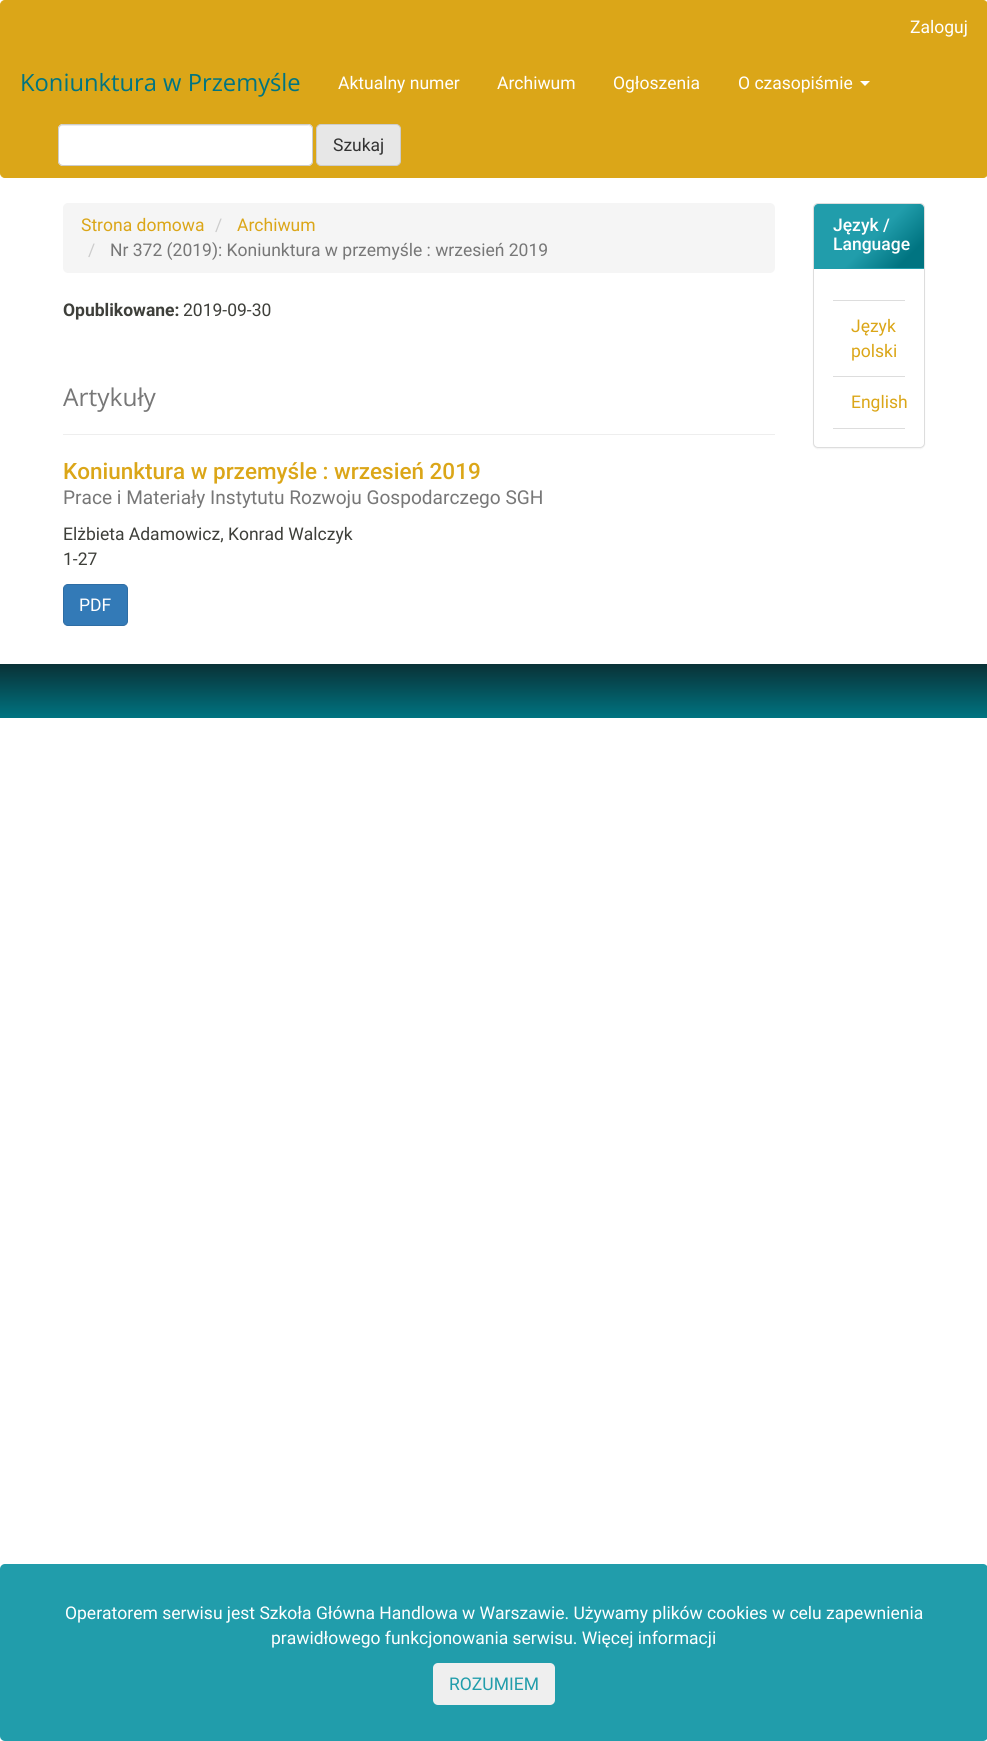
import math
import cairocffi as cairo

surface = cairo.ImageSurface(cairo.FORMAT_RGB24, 987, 1741)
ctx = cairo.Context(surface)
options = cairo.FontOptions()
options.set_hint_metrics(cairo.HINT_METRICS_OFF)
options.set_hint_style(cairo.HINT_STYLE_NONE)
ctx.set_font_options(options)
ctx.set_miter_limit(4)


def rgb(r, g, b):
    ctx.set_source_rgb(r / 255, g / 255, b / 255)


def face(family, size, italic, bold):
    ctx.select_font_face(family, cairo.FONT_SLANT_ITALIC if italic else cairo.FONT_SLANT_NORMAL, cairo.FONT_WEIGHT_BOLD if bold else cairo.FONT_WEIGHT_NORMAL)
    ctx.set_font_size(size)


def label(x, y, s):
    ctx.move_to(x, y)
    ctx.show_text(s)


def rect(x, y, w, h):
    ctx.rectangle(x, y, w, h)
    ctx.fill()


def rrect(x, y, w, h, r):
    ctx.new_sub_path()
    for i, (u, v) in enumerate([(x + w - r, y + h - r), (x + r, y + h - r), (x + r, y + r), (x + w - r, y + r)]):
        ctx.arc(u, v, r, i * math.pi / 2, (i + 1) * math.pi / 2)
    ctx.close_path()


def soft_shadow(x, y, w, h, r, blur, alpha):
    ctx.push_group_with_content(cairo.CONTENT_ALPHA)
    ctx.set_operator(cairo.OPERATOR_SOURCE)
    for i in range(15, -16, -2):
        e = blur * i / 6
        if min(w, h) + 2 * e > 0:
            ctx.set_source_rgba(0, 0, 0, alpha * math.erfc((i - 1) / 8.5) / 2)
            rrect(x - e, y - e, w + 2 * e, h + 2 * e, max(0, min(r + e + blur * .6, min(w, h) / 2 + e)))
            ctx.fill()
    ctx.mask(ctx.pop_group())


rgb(255, 255, 255)
ctx.paint()
rgb(219, 166, 24)
rrect(0.5, 0.5, 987, 177, 4.5)
ctx.fill_preserve()
ctx.set_line_width(1)
ctx.stroke()
face('Roboto', 17.5, 0, 0)
rgb(255, 255, 255)
label(910, 33, 'Zaloguj')
face('Open Sans', 23.75, 0, 0)
rgb(0, 116, 129)
label(20, 91, 'Koniunktura w Przemyśle')
face('Roboto', 17.5, 0, 0)
rgb(255, 255, 255)
label(338, 89, 'Aktualny numer')
label(497, 89, 'Archiwum')
label(613, 89, 'Ogłoszenia')
label(738, 89, 'O czasopiśmie')
ctx.new_path()
ctx.move_to(860, 81)
ctx.line_to(870, 81)
ctx.line_to(865, 86)
ctx.close_path()
ctx.fill()
rrect(58, 124, 255, 42, 5)
ctx.fill()
rgb(236, 236, 236)
ctx.new_path()
ctx.move_to(62, 126)
ctx.line_to(308, 126)
ctx.curve_to(310, 126, 311, 128, 311, 130)
ctx.line_to(311, 129)
ctx.curve_to(311, 127, 309, 125, 307, 125)
ctx.line_to(63, 125)
ctx.curve_to(61, 125, 59, 127, 59, 129)
ctx.line_to(59, 130)
ctx.curve_to(59, 128, 60, 126, 62, 126)
ctx.close_path()
ctx.fill()
rrect(58.5, 124.5, 254, 41, 4.5)
rgb(204, 204, 204)
ctx.stroke()
rgb(231, 231, 231)
rrect(316.5, 124.5, 84, 41, 4.5)
ctx.fill_preserve()
rgb(204, 204, 204)
ctx.stroke()
rgb(51, 51, 51)
label(333, 151, 'Szukaj')
rgb(245, 245, 245)
rrect(63, 203, 712, 70, 5)
ctx.fill()
rgb(219, 166, 24)
label(81, 231, 'Strona domowa')
rgb(204, 204, 204)
label(215, 231, '/')
rgb(219, 166, 24)
label(237, 231, 'Archiwum')
rgb(204, 204, 204)
label(88, 256, '/')
rgb(119, 119, 119)
label(110, 256, 'Nr 372 (2019): Koniunktura w przemyśle : wrzesień 2019')
face('Roboto', 17.5, 0, 1)
rgb(62, 63, 58)
label(63, 316, 'Opublikowane:')
face('Roboto', 17.5, 0, 0)
label(183, 316, '2019-09-30')
rgb(238, 238, 238)
rect(63, 434, 712, 1)
face('Open Sans', 24.5, 0, 0)
rgb(119, 119, 119)
label(63, 406, 'Artykuły')
face('Roboto Medium', 22.5, 0, 0)
rgb(219, 166, 24)
label(63, 479, 'Koniunktura w przemyśle : wrzesień 2019')
face('Roboto', 19.1, 0, 0)
rgb(119, 119, 119)
label(63, 504, 'Prace i Materiały Instytutu Rozwoju Gospodarczego SGH')
face('Roboto', 17.5, 0, 0)
rgb(62, 63, 58)
label(63, 540, 'Elżbieta Adamowicz, Konrad Walczyk')
label(63, 565, '1-27')
rgb(51, 122, 183)
rrect(63.5, 584.5, 64, 41, 4.5)
ctx.fill_preserve()
rgb(46, 109, 164)
ctx.stroke()
rgb(255, 255, 255)
label(79, 611, 'PDF')
rgb(0, 0, 0)
soft_shadow(813, 204, 112, 245, 5, 0.5, 0.05)
rgb(255, 255, 255)
rrect(813.5, 203.5, 111, 244, 4.5)
ctx.fill_preserve()
rgb(221, 221, 221)
ctx.stroke()
gradient = cairo.LinearGradient(825, 192, 930, 296)
gradient.add_color_stop_rgba(0.06, 0.129, 0.616, 0.671, 1)
gradient.add_color_stop_rgba(0.45, 0.129, 0.616, 0.671, 1)
gradient.add_color_stop_rgba(0.71, 0, 0.455, 0.506, 1)
gradient.add_color_stop_rgba(1, 0, 0.455, 0.506, 1)
ctx.set_source(gradient)
ctx.new_path()
ctx.move_to(818, 204)
ctx.line_to(920, 204)
ctx.curve_to(922, 204, 924, 206, 924, 208)
ctx.line_to(924, 268)
ctx.line_to(814, 268)
ctx.line_to(814, 208)
ctx.curve_to(814, 206, 816, 204, 818, 204)
ctx.close_path()
ctx.fill()
rgb(33, 157, 171)
rect(814, 268, 110, 1)
face('Roboto Medium', 17.5, 0, 0)
rgb(255, 255, 255)
label(833, 231, 'Język /')
label(833, 250, 'Language')
rgb(221, 221, 221)
rect(833, 300, 72, 1)
rect(833, 376, 72, 1)
face('Roboto', 17.5, 0, 0)
rgb(219, 166, 24)
label(851, 332, 'Język')
label(851, 357, 'polski')
rgb(221, 221, 221)
rect(833, 428, 72, 1)
rgb(219, 166, 24)
label(851, 408, 'English')
gradient = cairo.LinearGradient(494, 664, 494, 718)
gradient.add_color_stop_rgba(0, 0.035, 0.192, 0.212, 1)
gradient.add_color_stop_rgba(1, 0, 0.455, 0.506, 1)
ctx.set_source(gradient)
rect(0, 664, 987, 54)
rgb(33, 157, 171)
rrect(0, 1564, 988, 177, 5)
ctx.fill()
rgb(255, 255, 255)
label(65, 1619, 'Operatorem serwisu jest Szkoła Główna Handlowa w Warszawie. Używamy plików cookies w celu zapewnienia')
label(271, 1644, 'prawidłowego funkcjonowania serwisu. Więcej informacji')
rgb(239, 239, 239)
rrect(433, 1663, 122, 42, 5)
ctx.fill()
rgb(33, 157, 171)
label(449, 1690, 'ROZUMIEM')
surface.write_to_png('render.png')
